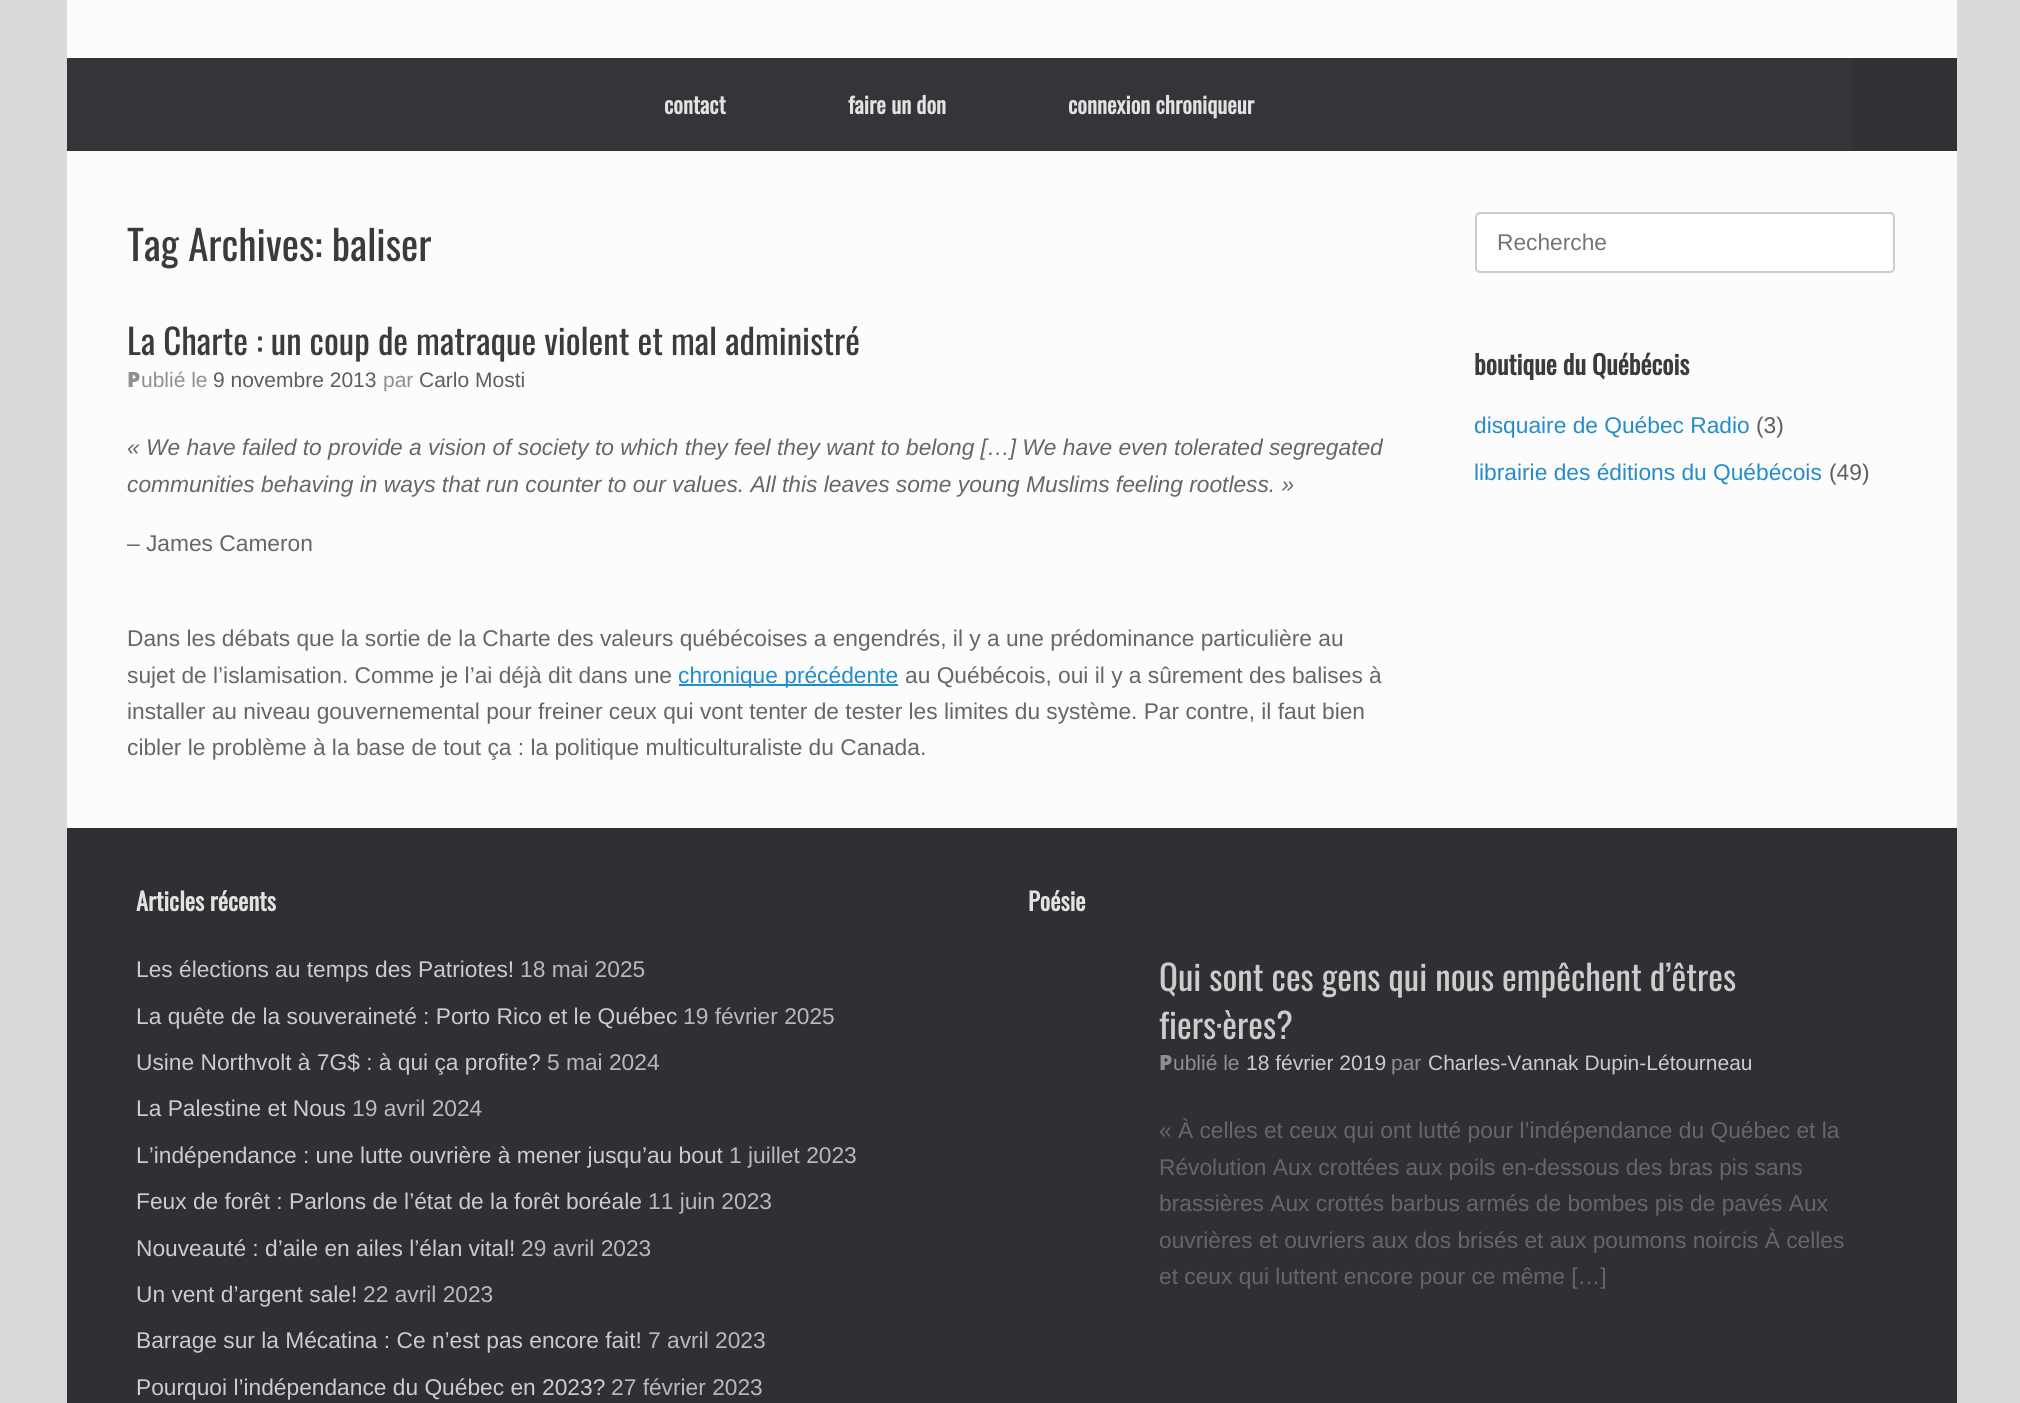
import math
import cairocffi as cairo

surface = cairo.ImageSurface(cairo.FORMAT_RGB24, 2020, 1403)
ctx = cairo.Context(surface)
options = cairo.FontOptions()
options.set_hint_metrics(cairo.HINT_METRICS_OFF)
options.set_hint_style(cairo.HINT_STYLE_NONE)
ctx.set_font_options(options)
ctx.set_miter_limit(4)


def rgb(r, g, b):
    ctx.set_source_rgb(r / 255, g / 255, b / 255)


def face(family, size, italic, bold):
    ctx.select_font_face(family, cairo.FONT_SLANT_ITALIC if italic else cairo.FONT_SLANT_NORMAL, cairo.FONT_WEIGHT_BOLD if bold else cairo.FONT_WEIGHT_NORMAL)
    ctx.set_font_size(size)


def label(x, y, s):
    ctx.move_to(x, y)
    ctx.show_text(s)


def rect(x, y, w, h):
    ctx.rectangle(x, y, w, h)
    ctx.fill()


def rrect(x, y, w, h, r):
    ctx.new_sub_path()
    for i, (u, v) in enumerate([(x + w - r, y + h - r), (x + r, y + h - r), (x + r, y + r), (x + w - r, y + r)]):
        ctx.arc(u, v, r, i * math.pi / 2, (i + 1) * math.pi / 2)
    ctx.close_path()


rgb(218, 218, 218)
ctx.paint()
rgb(252, 252, 252)
rect(67, 0, 1890, 58)
rgb(52, 53, 56)
rect(67, 58, 1786, 93)
face('Oswald', 22.75, 0, 1)
rgb(226, 226, 226)
label(664, 114, 'contact')
label(848, 114, 'faire un don')
label(1068, 114, 'connexion chroniqueur')
rgb(48, 49, 52)
rect(1853, 58, 104, 93)
rgb(252, 252, 252)
rect(67, 151, 1890, 677)
face('Oswald', 41, 0, 0)
rgb(59, 59, 59)
label(127, 261, 'Tag Archives: baliser')
face('Oswald', 35, 0, 0)
label(127, 355, 'La Charte : un coup de matraque violent et mal administré')
face('Noto Sans Black', 21, 0, 0)
rgb(143, 143, 143)
label(127, 387, 'P')
face('Liberation Sans', 21, 0, 0)
label(141, 387, 'ublié le')
rgb(94, 94, 94)
label(213, 387, '9 novembre 2013')
rgb(143, 143, 143)
label(383, 387, 'par')
rgb(94, 94, 94)
label(419, 387, 'Carlo Mosti')
face('Liberation Sans', 22.75, 1, 0)
rgb(102, 102, 102)
label(127, 455, '« We have failed to provide a vision of society to which they feel they want to belong […] We have even tolerated segregated')
label(127, 492, 'communities behaving in ways that run counter to our values. All this leaves some young Muslims feeling rootless. »')
face('Liberation Sans', 22.75, 0, 0)
label(127, 551, '– James Cameron')
label(127, 646, 'Dans les débats que la sortie de la Charte des valeurs québécoises a engendrés, il y a une prédominance particulière au')
label(127, 683, 'sujet de l’islamisation. Comme je l’ai déjà dit dans une')
rgb(36, 140, 200)
rect(679, 684, 219, 2)
label(678, 683, 'chronique précédente')
rgb(102, 102, 102)
label(905, 683, 'au Québécois, oui il y a sûrement des balises à')
label(127, 719, 'installer au niveau gouvernemental pour freiner ceux qui vont tenter de tester les limites du système. Par contre, il faut bien')
label(127, 755, 'cibler le problème à la base de tout ça : la politique multiculturaliste du Canada.')
rgb(255, 255, 255)
rrect(1476, 213, 418, 59, 4)
ctx.fill_preserve()
rgb(204, 204, 204)
ctx.stroke()
rgb(117, 117, 117)
label(1497, 250, 'Recherche')
face('Oswald', 26.25, 0, 1)
rgb(59, 59, 59)
label(1474, 375, 'boutique du Québécois')
face('Liberation Sans', 22.75, 0, 0)
rgb(36, 140, 200)
label(1474, 433, 'disquaire de Québec Radio')
rgb(94, 94, 94)
label(1756, 433, '(3)')
rgb(36, 140, 200)
label(1474, 480, 'librairie des éditions du Québécois')
rgb(94, 94, 94)
label(1829, 480, '(49)')
rgb(47, 48, 51)
rect(67, 828, 1890, 575)
face('Oswald', 24.5, 0, 1)
rgb(226, 226, 226)
label(136, 911, 'Articles récents')
face('Liberation Sans', 22.75, 0, 0)
rgb(204, 204, 204)
label(136, 977, 'Les élections au temps des Patriotes!')
rgb(185, 185, 185)
label(520, 977, '18 mai 2025')
rgb(204, 204, 204)
label(136, 1024, 'La quête de la souveraineté : Porto Rico et le Québec')
rgb(185, 185, 185)
label(683, 1024, '19 février 2025')
rgb(204, 204, 204)
label(136, 1070, 'Usine Northvolt à 7G$ : à qui ça profite?')
rgb(185, 185, 185)
label(547, 1070, '5 mai 2024')
rgb(204, 204, 204)
label(136, 1116, 'La Palestine et Nous')
rgb(185, 185, 185)
label(352, 1116, '19 avril 2024')
rgb(204, 204, 204)
label(136, 1163, 'L’indépendance : une lutte ouvrière à mener jusqu’au bout')
rgb(185, 185, 185)
label(729, 1163, '1 juillet 2023')
rgb(204, 204, 204)
label(136, 1209, 'Feux de forêt : Parlons de l’état de la forêt boréale')
rgb(185, 185, 185)
label(648, 1209, '11 juin 2023')
rgb(204, 204, 204)
label(136, 1256, 'Nouveauté : d’aile en ailes l’élan vital!')
rgb(185, 185, 185)
label(521, 1256, '29 avril 2023')
rgb(204, 204, 204)
label(136, 1302, 'Un vent d’argent sale!')
rgb(185, 185, 185)
label(363, 1302, '22 avril 2023')
rgb(204, 204, 204)
label(136, 1348, 'Barrage sur la Mécatina : Ce n’est pas encore fait!')
rgb(185, 185, 185)
label(648, 1348, '7 avril 2023')
rgb(204, 204, 204)
label(136, 1395, 'Pourquoi l’indépendance du Québec en 2023?')
rgb(185, 185, 185)
label(611, 1395, '27 février 2023')
face('Oswald', 24.5, 0, 1)
rgb(226, 226, 226)
label(1028, 911, 'Poésie')
face('Oswald', 35, 0, 0)
rgb(204, 204, 204)
label(1159, 991, 'Qui sont ces gens qui nous empêchent d’êtres')
label(1159, 1039, 'fiers·ères?')
face('Noto Sans Black', 21, 0, 0)
rgb(143, 143, 143)
label(1159, 1070, 'P')
face('Liberation Sans', 21, 0, 0)
label(1173, 1070, 'ublié le')
rgb(204, 204, 204)
label(1246, 1070, '18 février 2019')
rgb(143, 143, 143)
label(1391, 1070, 'par')
rgb(204, 204, 204)
label(1428, 1070, 'Charles-Vannak Dupin-Létourneau')
face('Liberation Sans', 22.75, 0, 0)
rgb(102, 102, 102)
label(1159, 1138, '« À celles et ceux qui ont lutté pour l’indépendance du Québec et la')
label(1159, 1175, 'Révolution Aux crottées aux poils en-dessous des bras pis sans')
label(1159, 1211, 'brassières Aux crottés barbus armés de bombes pis de pavés Aux')
label(1159, 1248, 'ouvrières et ouvriers aux dos brisés et aux poumons noircis À celles')
label(1159, 1284, 'et ceux qui luttent encore pour ce même […]')
surface.write_to_png('render.png')
